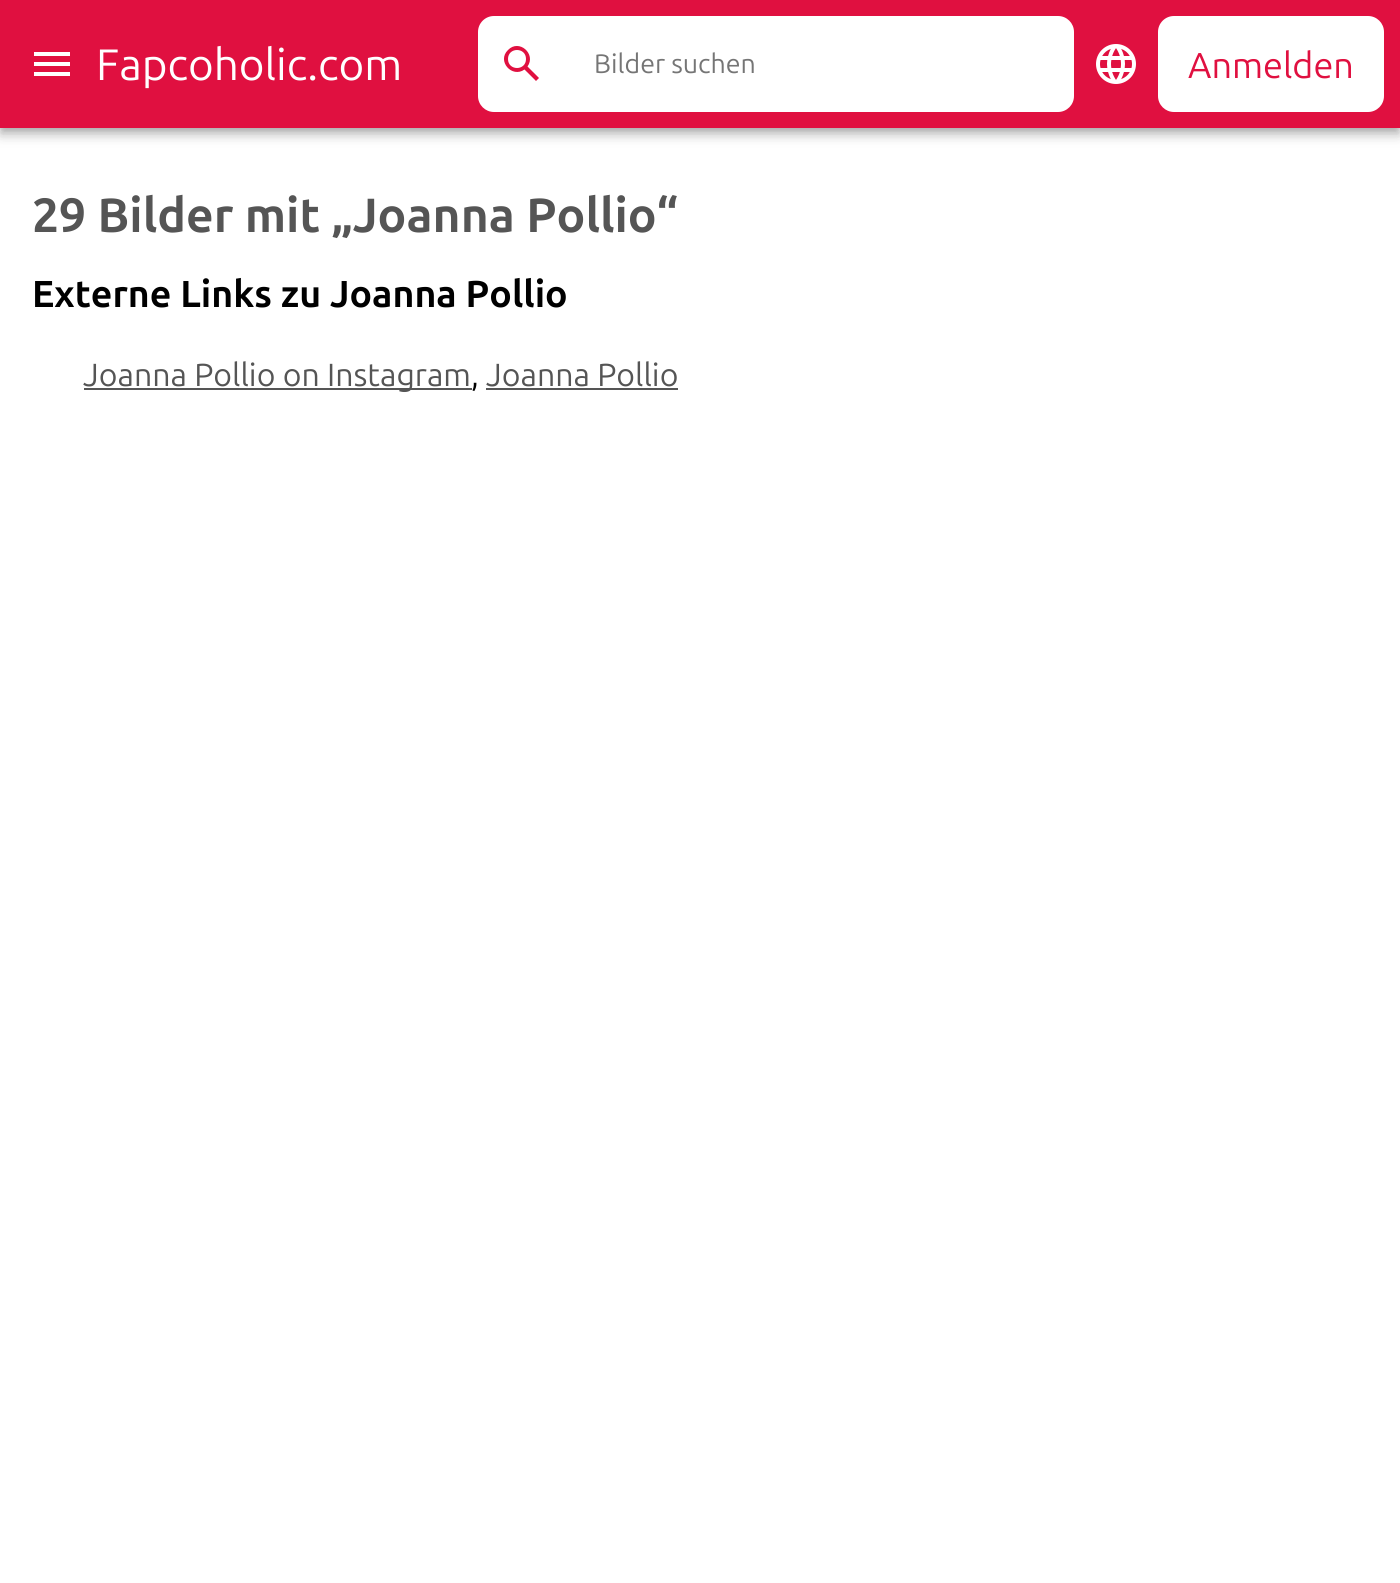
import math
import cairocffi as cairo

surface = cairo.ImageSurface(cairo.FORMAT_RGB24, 1400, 1583)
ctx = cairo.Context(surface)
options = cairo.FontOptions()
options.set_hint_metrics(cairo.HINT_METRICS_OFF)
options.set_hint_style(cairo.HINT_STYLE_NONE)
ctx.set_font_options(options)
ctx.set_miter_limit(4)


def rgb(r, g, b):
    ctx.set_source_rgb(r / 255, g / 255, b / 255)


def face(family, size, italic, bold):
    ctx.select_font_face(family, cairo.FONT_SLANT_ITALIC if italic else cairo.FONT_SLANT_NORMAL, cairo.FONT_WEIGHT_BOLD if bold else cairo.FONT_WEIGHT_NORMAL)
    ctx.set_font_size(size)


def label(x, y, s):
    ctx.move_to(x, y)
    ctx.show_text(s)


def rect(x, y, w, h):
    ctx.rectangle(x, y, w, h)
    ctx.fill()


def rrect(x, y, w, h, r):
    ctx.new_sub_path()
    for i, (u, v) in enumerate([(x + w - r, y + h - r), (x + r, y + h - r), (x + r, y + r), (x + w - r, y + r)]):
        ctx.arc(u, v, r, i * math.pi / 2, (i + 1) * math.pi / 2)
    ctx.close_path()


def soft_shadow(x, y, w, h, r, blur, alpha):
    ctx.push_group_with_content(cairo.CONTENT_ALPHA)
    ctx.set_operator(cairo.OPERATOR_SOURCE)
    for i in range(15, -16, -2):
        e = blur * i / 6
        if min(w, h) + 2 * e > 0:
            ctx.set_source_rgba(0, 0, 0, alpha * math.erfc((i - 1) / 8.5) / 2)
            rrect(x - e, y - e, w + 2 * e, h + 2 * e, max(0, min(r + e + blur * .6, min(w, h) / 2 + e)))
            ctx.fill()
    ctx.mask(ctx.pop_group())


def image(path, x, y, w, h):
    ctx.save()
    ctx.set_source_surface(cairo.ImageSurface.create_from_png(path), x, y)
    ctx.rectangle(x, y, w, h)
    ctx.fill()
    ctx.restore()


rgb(255, 255, 255)
ctx.paint()
rgb(0, 0, 0)
soft_shadow(2, 6, 1396, 124, 0, 4, 0.2)
soft_shadow(0, 2, 1400, 128, 0, 10, 0.12)
soft_shadow(0, 8, 1400, 128, 0, 5, 0.14)
rgb(224, 16, 64)
rect(0, 0, 1400, 128)
rgb(255, 255, 255)
ctx.new_path()
ctx.move_to(34, 76)
ctx.line_to(70, 76)
ctx.line_to(70, 72)
ctx.line_to(34, 72)
ctx.close_path()
ctx.move_to(34, 66)
ctx.line_to(70, 66)
ctx.line_to(70, 62)
ctx.line_to(34, 62)
ctx.close_path()
ctx.move_to(34, 52)
ctx.line_to(34, 56)
ctx.line_to(70, 56)
ctx.line_to(70, 52)
ctx.close_path()
ctx.fill()
face('Ubuntu', 44, 0, 0)
label(96, 80, 'Fapcoholic.com')
rrect(478, 16, 596, 96, 16)
ctx.fill()
rgb(224, 16, 64)
ctx.new_path()
ctx.move_to(539, 78)
ctx.line_to(527.5, 66.5)
ctx.curve_to(536.5, 54, 519, 38.5, 508, 50)
ctx.curve_to(496.5, 61, 512, 78.5, 524.5, 69.5)
ctx.line_to(536, 81)
ctx.close_path()
ctx.move_to(508, 59)
ctx.curve_to(508, 47, 526, 47, 526, 59)
ctx.curve_to(526, 71, 508, 71, 508, 59)
ctx.close_path()
ctx.fill()
face('Ubuntu', 26.75, 0, 0)
rgb(117, 117, 117)
label(594, 73, 'Bilder suchen')
image('image0.png', 1096, 44, 40, 40)
rgb(255, 255, 255)
rrect(1158, 16, 226, 96, 16)
ctx.fill()
face('Ubuntu', 36, 0, 0)
rgb(224, 16, 64)
label(1188, 78, 'Anmelden')
face('Ubuntu', 48, 0, 1)
rgb(85, 85, 85)
label(32, 232, '29 Bilder mit „Joanna Pollio“')
face('Ubuntu', 37.5, 0, 1)
rgb(0, 0, 0)
label(32, 307, 'Externe Links zu Joanna Pollio')
rgb(85, 85, 85)
rect(84, 388, 388, 2)
face('Ubuntu', 32, 0, 0)
label(83, 386, 'Joanna Pollio on Instagram')
rgb(0, 0, 0)
label(471, 386, ',')
rgb(85, 85, 85)
rect(486, 388, 192, 2)
label(486, 386, 'Joanna Pollio')
surface.write_to_png('render.png')
